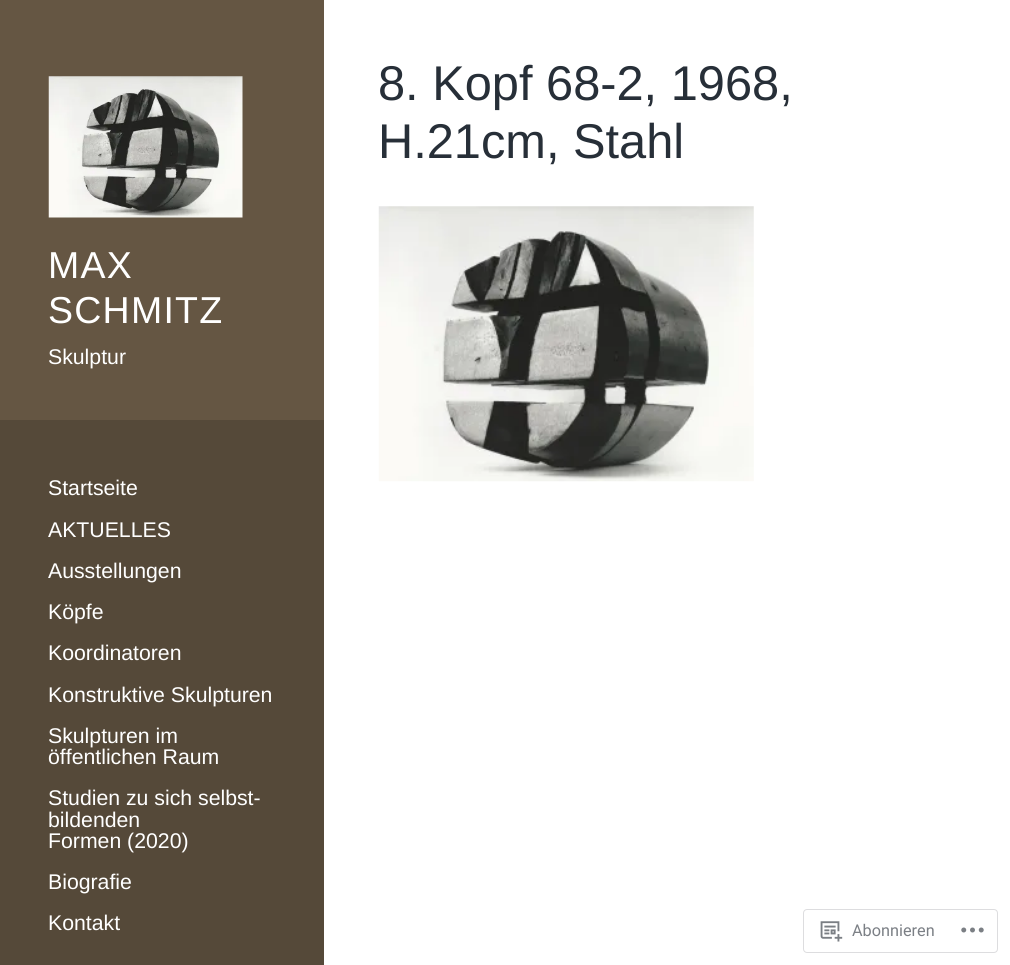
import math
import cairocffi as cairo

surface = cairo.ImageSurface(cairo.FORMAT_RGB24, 1010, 965)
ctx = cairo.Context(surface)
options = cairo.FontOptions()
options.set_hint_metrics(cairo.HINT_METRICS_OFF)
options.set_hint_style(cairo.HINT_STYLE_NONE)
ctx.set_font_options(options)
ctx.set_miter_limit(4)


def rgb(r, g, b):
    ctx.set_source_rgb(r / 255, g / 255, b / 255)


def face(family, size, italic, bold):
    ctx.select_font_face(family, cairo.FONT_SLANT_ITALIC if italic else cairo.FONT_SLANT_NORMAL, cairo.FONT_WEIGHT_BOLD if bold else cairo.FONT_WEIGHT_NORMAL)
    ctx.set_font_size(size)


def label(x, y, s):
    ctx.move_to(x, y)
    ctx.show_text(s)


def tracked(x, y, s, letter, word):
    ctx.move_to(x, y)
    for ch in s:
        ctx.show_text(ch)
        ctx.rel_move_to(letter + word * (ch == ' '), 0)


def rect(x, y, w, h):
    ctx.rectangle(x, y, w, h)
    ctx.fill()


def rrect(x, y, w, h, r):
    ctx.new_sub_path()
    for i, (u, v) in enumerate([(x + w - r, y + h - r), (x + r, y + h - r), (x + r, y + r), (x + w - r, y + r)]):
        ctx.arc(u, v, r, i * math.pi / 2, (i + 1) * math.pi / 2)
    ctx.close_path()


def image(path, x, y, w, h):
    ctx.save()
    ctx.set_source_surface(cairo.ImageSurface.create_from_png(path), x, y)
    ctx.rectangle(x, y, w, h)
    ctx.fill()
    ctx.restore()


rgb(255, 255, 255)
ctx.paint()
face('Arimo', 48.75, 0, 0)
rgb(39, 47, 56)
label(378, 100, '8. Kopf 68-2, 1968,')
label(378, 158, 'H.21cm, Stahl')
image('image0.png', 378, 206, 376, 276)
rgb(101, 86, 67)
rect(0, 0, 324, 420)
image('image1.png', 48, 76, 195, 142)
face('Arimo', 37.5, 0, 0)
rgb(255, 255, 255)
tracked(48, 278, 'MAX', 1.25, 0)
tracked(48, 323, 'SCHMITZ', 1.25, 0)
face('Arimo', 21.25, 0, 0)
label(48, 364, 'Skulptur')
rgb(85, 73, 57)
rect(0, 420, 324, 545)
rgb(255, 255, 255)
label(48, 495, 'Startseite')
label(48, 537, 'AKTUELLES')
label(48, 578, 'Ausstellungen')
label(48, 619, 'Köpfe')
label(48, 660, 'Koordinatoren')
label(48, 702, 'Konstruktive Skulpturen')
label(48, 743, 'Skulpturen im')
label(48, 764, 'öffentlichen Raum')
label(48, 805, 'Studien zu sich selbst-')
label(48, 827, 'bildenden')
label(48, 848, 'Formen (2020)')
label(48, 889, 'Biografie')
label(48, 930, 'Kontakt')
rrect(803.5, 909.5, 194, 43, 3.5)
rgb(221, 221, 223)
ctx.set_line_width(1)
ctx.stroke()
image('image2.png', 820, 921, 23, 21)
face('Roboto', 16.25, 0, 0)
rgb(123, 127, 133)
label(852, 936, 'Abonnieren')
image('image3.png', 961, 927, 23, 6)
surface.write_to_png('render.png')
